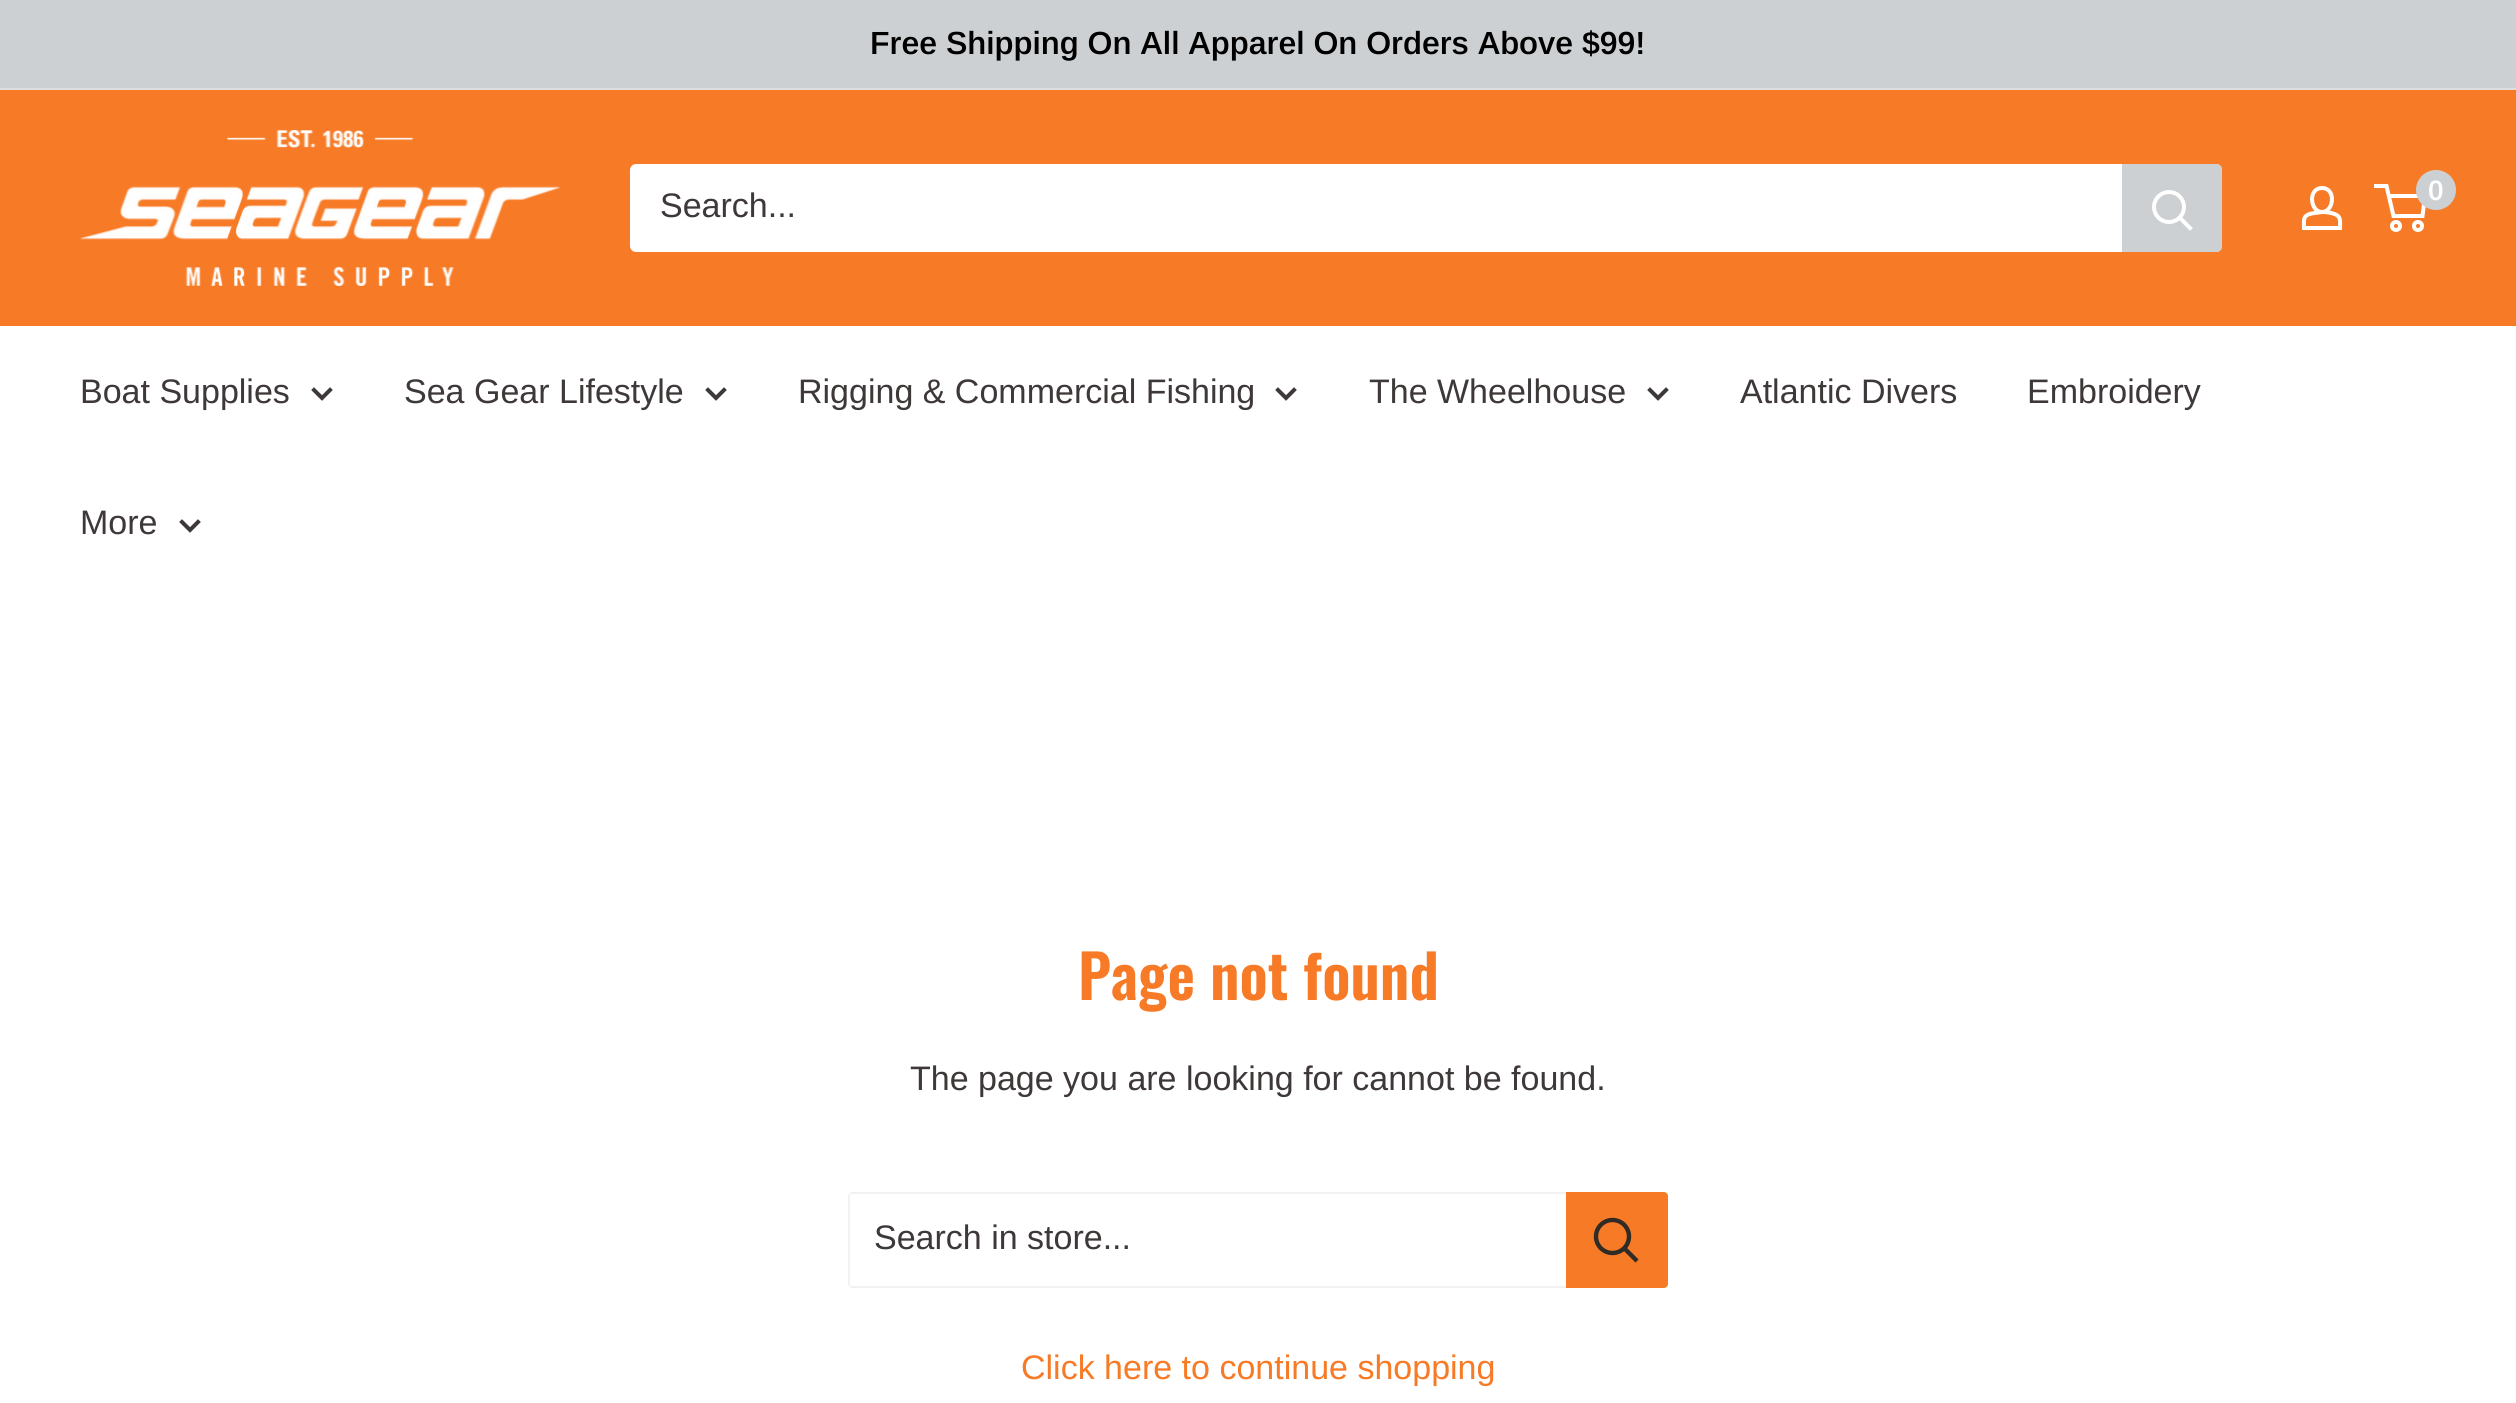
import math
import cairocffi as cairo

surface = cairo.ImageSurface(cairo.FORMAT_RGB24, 2516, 1403)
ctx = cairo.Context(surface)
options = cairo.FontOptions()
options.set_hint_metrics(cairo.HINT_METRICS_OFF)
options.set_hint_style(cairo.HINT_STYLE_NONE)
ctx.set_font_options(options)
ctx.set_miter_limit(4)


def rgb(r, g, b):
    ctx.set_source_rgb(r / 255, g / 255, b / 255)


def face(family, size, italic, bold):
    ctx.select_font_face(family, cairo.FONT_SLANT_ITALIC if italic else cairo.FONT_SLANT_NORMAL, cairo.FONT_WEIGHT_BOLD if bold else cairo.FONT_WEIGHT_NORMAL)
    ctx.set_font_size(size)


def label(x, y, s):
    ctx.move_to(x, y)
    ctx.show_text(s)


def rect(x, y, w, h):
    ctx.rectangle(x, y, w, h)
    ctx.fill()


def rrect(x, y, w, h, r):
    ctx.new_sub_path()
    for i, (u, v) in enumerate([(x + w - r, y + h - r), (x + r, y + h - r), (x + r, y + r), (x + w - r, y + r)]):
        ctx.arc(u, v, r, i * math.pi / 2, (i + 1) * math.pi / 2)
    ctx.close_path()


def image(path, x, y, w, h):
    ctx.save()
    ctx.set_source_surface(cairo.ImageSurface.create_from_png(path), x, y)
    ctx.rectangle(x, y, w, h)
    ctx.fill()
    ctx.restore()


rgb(255, 255, 255)
ctx.paint()
rgb(205, 208, 210)
rect(0, 0, 2516, 88)
rgb(220, 222, 224)
rect(0, 88, 2516, 2)
face('Arimo SemiBold', 32, 0, 0)
rgb(0, 0, 0)
label(870, 54, 'Free Shipping On All Apparel On Orders Above $99!')
rgb(247, 123, 39)
rect(0, 90, 2516, 236)
image('image0.png', 80, 130, 480, 156)
rgb(255, 255, 255)
rrect(630, 164, 1592, 88, 6)
ctx.fill()
face('Arimo', 34, 0, 0)
rgb(62, 56, 56)
label(660, 217, 'Search...')
rgb(205, 208, 210)
ctx.new_path()
ctx.move_to(2122, 164)
ctx.line_to(2216, 164)
ctx.curve_to(2219.5, 164, 2222, 166.5, 2222, 170)
ctx.line_to(2222, 246)
ctx.curve_to(2222, 249.5, 2219.5, 252, 2216, 252)
ctx.line_to(2122, 252)
ctx.close_path()
ctx.fill()
ctx.new_path()
ctx.move_to(2190, 228)
ctx.line_to(2180, 218)
rgb(255, 255, 255)
ctx.set_line_width(4)
ctx.set_line_cap(cairo.LINE_CAP_SQUARE)
ctx.stroke()
ctx.arc(2169, 207, 15, 0, 2 * math.pi)
ctx.set_line_cap(cairo.LINE_CAP_BUTT)
ctx.stroke()
ctx.new_path()
ctx.move_to(2322, 212)
ctx.curve_to(2326, 212, 2329.5, 212.5, 2333, 213.5)
ctx.curve_to(2341.5, 216, 2340, 220.5, 2340, 228)
ctx.line_to(2304, 228)
ctx.curve_to(2304, 220, 2302.5, 215.5, 2311.5, 213.5)
ctx.close_path()
ctx.move_to(2322, 212)
ctx.curve_to(2310, 212, 2307.5, 188, 2322, 188)
ctx.curve_to(2336.5, 188, 2334, 212, 2322, 212)
ctx.close_path()
ctx.stroke()
ctx.arc(2396, 226, 4, 0, 2 * math.pi)
ctx.stroke()
ctx.arc(2418, 226, 4, 0, 2 * math.pi)
ctx.stroke()
ctx.new_path()
ctx.move_to(2388.5, 196)
ctx.line_to(2425, 196)
ctx.line_to(2422.5, 216)
ctx.line_to(2393.5, 216)
ctx.line_to(2386.5, 186)
ctx.line_to(2374, 186)
ctx.stroke()
rgb(205, 208, 210)
ctx.arc(2436, 190, 20, 0, 2 * math.pi)
ctx.fill()
face('Arimo SemiBold', 28, 0, 0)
rgb(255, 255, 255)
label(2428, 200, '0')
face('Arimo', 34, 0, 0)
rgb(62, 56, 56)
label(80, 403, 'Boat Supplies')
ctx.new_path()
ctx.move_to(330, 390)
ctx.line_to(322, 398)
ctx.line_to(314, 390)
ctx.set_line_cap(cairo.LINE_CAP_SQUARE)
ctx.stroke()
label(404, 403, 'Sea Gear Lifestyle')
ctx.new_path()
ctx.move_to(724, 390)
ctx.line_to(716, 398)
ctx.line_to(708, 390)
ctx.stroke()
label(798, 403, 'Rigging & Commercial Fishing')
ctx.new_path()
ctx.move_to(1294, 390)
ctx.line_to(1286, 398)
ctx.line_to(1278, 390)
ctx.stroke()
label(1369, 403, 'The Wheelhouse')
ctx.new_path()
ctx.move_to(1666, 390)
ctx.line_to(1658, 398)
ctx.line_to(1650, 390)
ctx.stroke()
label(1740, 403, 'Atlantic Divers')
label(2027, 403, 'Embroidery')
label(80, 534, 'More')
ctx.new_path()
ctx.move_to(198, 522)
ctx.line_to(190, 530)
ctx.line_to(182, 522)
ctx.stroke()
face('Oswald SemiBold', 60, 0, 0)
rgb(247, 123, 39)
label(1078, 1000, 'Page not found')
face('Arimo', 34, 0, 0)
rgb(62, 56, 56)
label(910, 1090, 'The page you are looking for cannot be found.')
rgb(242, 242, 242)
rect(850, 1192, 716, 2)
rect(850, 1286, 716, 2)
rect(848, 1194, 2, 92)
rgb(62, 56, 56)
label(874, 1249, 'Search in store...')
rgb(247, 123, 39)
ctx.new_path()
ctx.move_to(1566, 1192)
ctx.line_to(1664, 1192)
ctx.curve_to(1666, 1192, 1668, 1194, 1668, 1196)
ctx.line_to(1668, 1284)
ctx.curve_to(1668, 1286, 1666, 1288, 1664, 1288)
ctx.line_to(1566, 1288)
ctx.close_path()
ctx.fill()
ctx.new_path()
ctx.move_to(1635.5, 1259.5)
ctx.line_to(1624.5, 1248.5)
rgb(48, 43, 36)
ctx.set_line_width(4.4)
ctx.stroke()
ctx.arc(1612.5, 1236.5, 16.5, 0, 2 * math.pi)
ctx.set_line_cap(cairo.LINE_CAP_BUTT)
ctx.stroke()
rgb(247, 123, 39)
label(1021, 1379, 'Click here to continue shopping')
surface.write_to_png('render.png')
